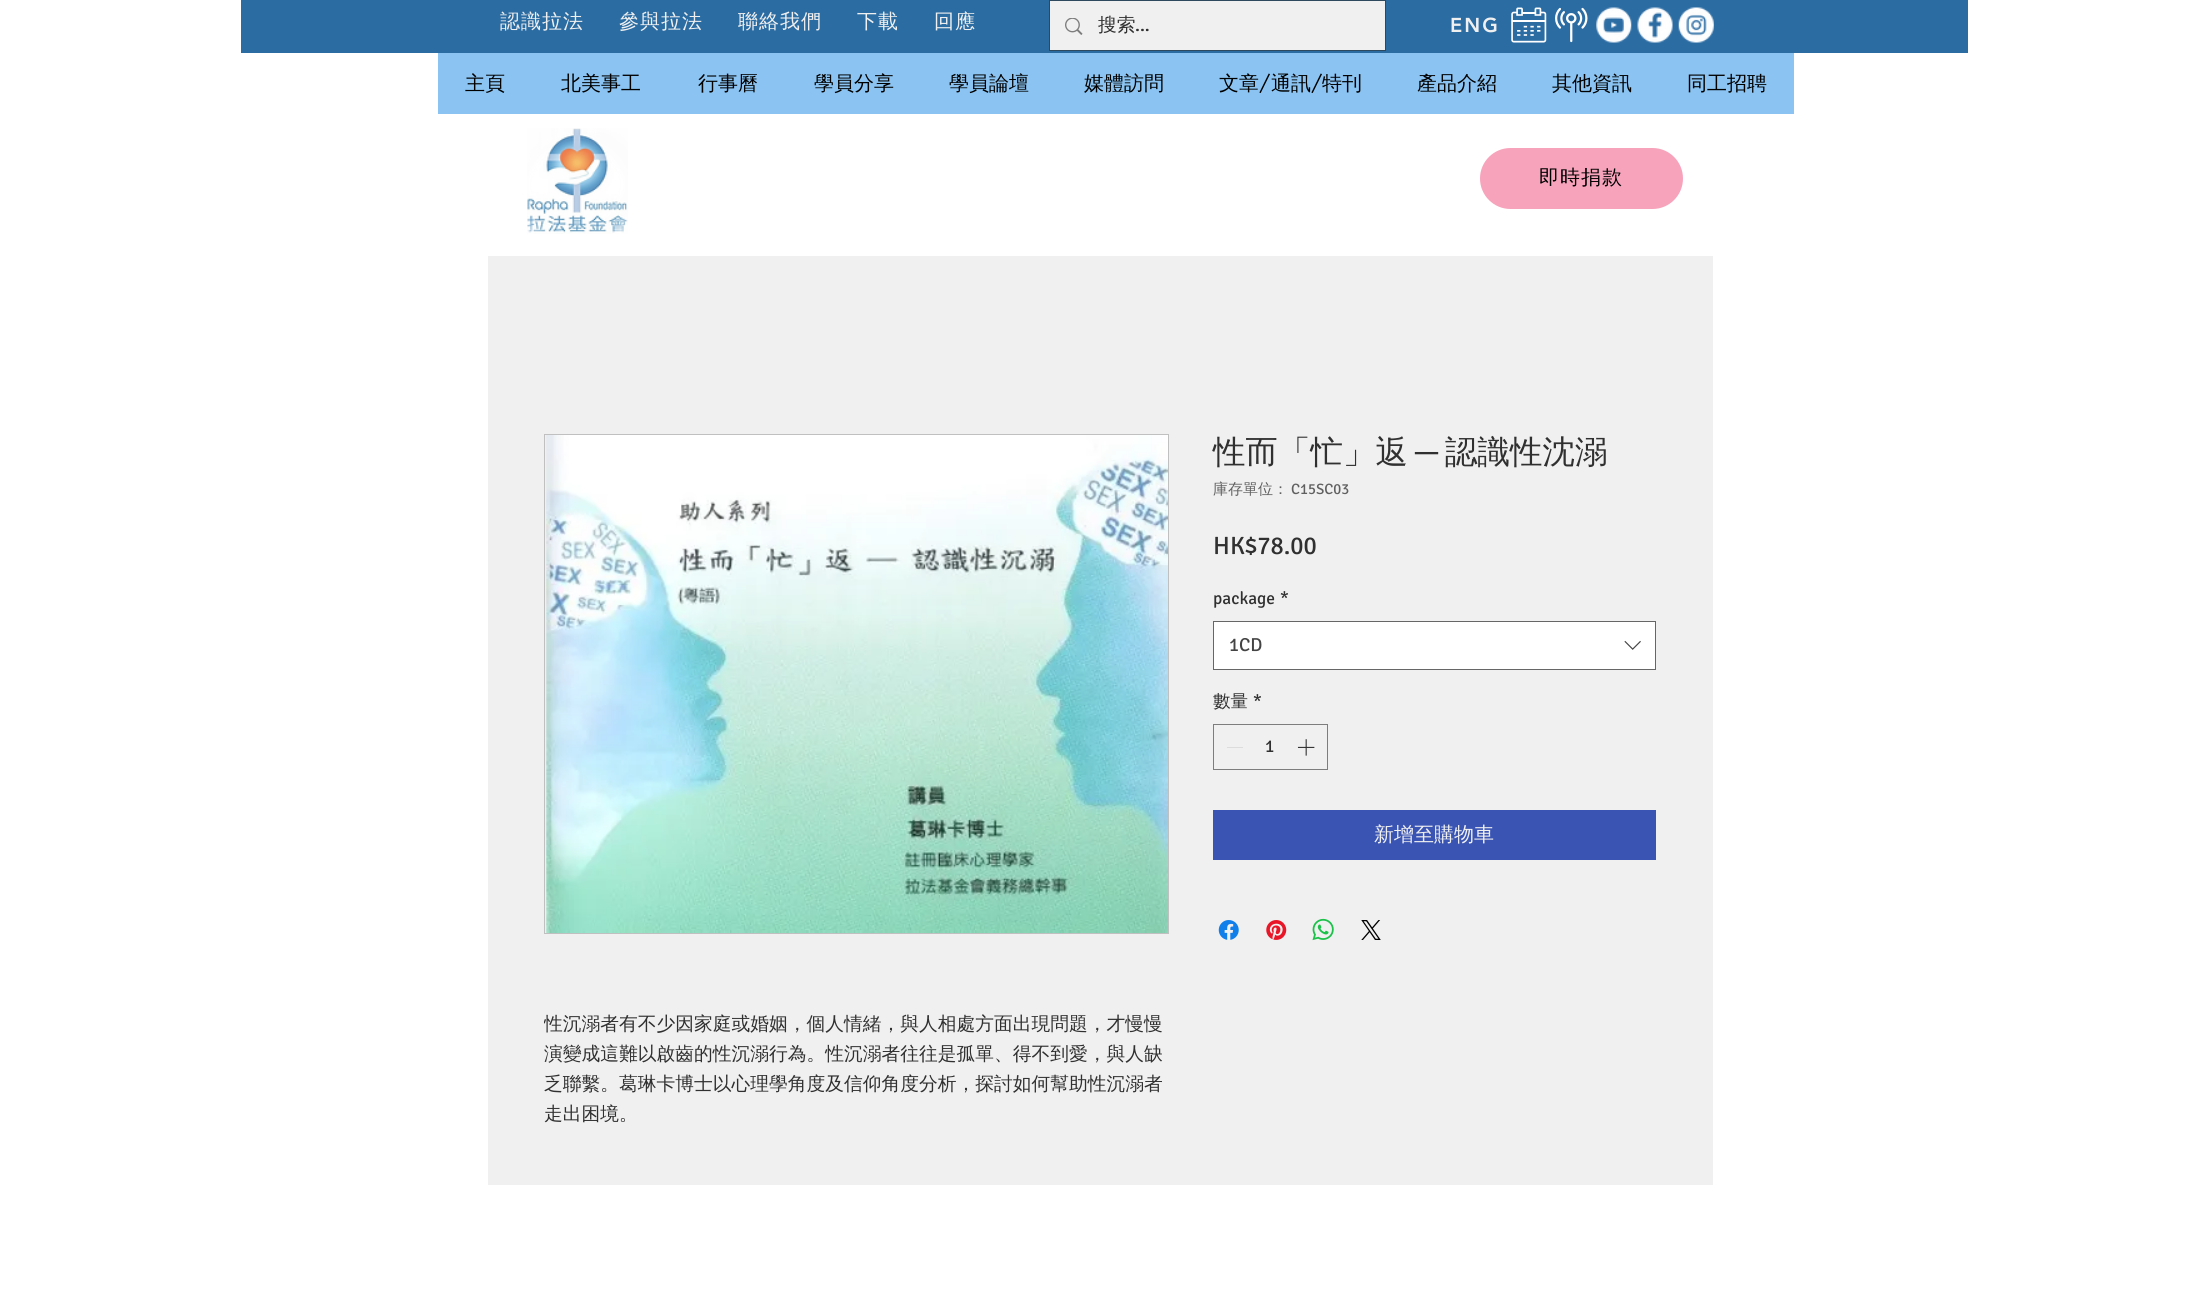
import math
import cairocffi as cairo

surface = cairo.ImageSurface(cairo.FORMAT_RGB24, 2199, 1295)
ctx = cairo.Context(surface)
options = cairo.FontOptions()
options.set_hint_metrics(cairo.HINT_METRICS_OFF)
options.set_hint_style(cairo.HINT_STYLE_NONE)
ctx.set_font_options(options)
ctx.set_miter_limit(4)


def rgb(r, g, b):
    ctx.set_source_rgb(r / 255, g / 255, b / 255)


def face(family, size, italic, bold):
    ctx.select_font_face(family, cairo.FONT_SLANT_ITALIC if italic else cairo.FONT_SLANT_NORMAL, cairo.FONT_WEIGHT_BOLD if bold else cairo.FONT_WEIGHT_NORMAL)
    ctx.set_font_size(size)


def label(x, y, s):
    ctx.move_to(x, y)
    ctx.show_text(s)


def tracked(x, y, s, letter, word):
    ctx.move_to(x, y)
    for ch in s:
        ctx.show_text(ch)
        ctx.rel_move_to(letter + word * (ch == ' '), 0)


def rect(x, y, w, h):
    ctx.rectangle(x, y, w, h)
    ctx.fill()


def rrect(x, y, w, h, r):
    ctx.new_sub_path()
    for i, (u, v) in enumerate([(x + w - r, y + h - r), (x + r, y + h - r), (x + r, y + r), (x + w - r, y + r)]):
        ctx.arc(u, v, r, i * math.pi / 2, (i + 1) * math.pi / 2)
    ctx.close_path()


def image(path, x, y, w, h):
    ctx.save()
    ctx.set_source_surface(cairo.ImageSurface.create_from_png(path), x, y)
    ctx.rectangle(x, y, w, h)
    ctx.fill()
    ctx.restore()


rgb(255, 255, 255)
ctx.paint()
rgb(43, 108, 163)
rect(241, 0, 1727, 53)
face('WenQuanYi Zen Hei Medium', 20, 0, 0)
rgb(240, 240, 240)
tracked(500, 28, '認識拉法', 1, 0)
tracked(619, 28, '參與拉法', 1, 0)
tracked(738, 28, '聯絡我們', 1, 0)
tracked(857, 28, '下載', 1, 0)
tracked(934, 28, '回應', 1, 0)
ctx.rectangle(1049.5, 0.5, 336, 50)
rgb(46, 72, 94)
ctx.set_line_width(1)
ctx.stroke()
rgb(240, 240, 240)
rect(1050, 1, 335, 49)
image('image0.png', 1065, 18, 18, 17)
face('WenQuanYi Zen Hei Medium', 18.75, 0, 0)
rgb(48, 48, 48)
label(1098, 31, '搜索')
face('Signika', 18.75, 0, 0)
label(1135, 31, '...')
face('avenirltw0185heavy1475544 Black', 20, 0, 0)
rgb(240, 240, 240)
tracked(1450, 32, 'ENG', 2, 0)
image('image1.png', 1511, 7, 36, 36)
image('image2.png', 1555, 7, 33, 36)
image('image3.png', 1596, 7, 36, 36)
image('image4.png', 1637, 7, 36, 36)
image('image5.png', 1678, 7, 36, 36)
rgb(139, 196, 242)
rect(438, 53, 1356, 61)
face('WenQuanYi Zen Hei Medium', 20, 0, 0)
rgb(0, 0, 0)
label(465, 90, '主頁')
label(561, 90, '北美事工')
label(698, 90, '行事曆')
label(814, 90, '學員分享')
label(949, 90, '學員論壇')
label(1084, 90, '媒體訪問')
label(1219, 90, '文章')
face('futura', 20, 0, 0)
label(1259, 90, '/')
face('WenQuanYi Zen Hei Medium', 20, 0, 0)
label(1271, 90, '通訊')
face('futura', 20, 0, 0)
label(1311, 90, '/')
face('WenQuanYi Zen Hei Medium', 20, 0, 0)
label(1322, 90, '特刊')
label(1417, 90, '產品介紹')
label(1552, 90, '其他資訊')
label(1687, 90, '同工招聘')
image('image6.png', 527, 128, 101, 106)
rgb(247, 163, 188)
rrect(1480, 148, 203, 61, 30.5)
ctx.fill()
rgb(0, 0, 0)
tracked(1539, 184, '即時捐款', 1, 0)
rgb(240, 240, 240)
rect(488, 256, 1225, 929)
face('WenQuanYi Zen Hei Medium', 32.5, 0, 0)
rgb(48, 48, 48)
label(1213, 463, '性而「忙」返')
face('Liberation Sans', 32.5, 0, 0)
label(1415, 463, '─')
face('WenQuanYi Zen Hei Medium', 32.5, 0, 0)
label(1445, 463, '認識性沈溺')
face('WenQuanYi Zen Hei Medium', 15, 0, 0)
rgb(96, 96, 96)
label(1213, 494, '庫存單位：')
face('Signika', 15, 0, 0)
label(1291, 494, 'C15SC03')
face('Signika', 25, 0, 0)
rgb(48, 48, 48)
label(1213, 554, 'HK$78.00')
face('Signika', 17.5, 0, 0)
label(1213, 604, 'package')
label(1280, 604, '*')
rgb(255, 255, 255)
ctx.rectangle(1213.5, 621.5, 442, 48)
ctx.fill_preserve()
rgb(102, 102, 102)
ctx.stroke()
face('Signika', 18.75, 0, 0)
rgb(68, 68, 68)
label(1229, 651, '1CD')
image('image7.png', 1624, 640, 17, 10)
face('WenQuanYi Zen Hei Medium', 17.5, 0, 0)
rgb(48, 48, 48)
label(1213, 707, '數量')
face('Signika', 17.5, 0, 0)
label(1253, 707, '*')
ctx.rectangle(1213.5, 724.5, 114, 45)
rgb(125, 125, 125)
ctx.stroke()
rgb(220, 220, 220)
rect(1227, 747, 16, 1)
rgb(48, 48, 48)
label(1265, 752, '1')
image('image8.png', 1297, 739, 18, 17)
rgb(58, 84, 180)
rect(1213, 810, 443, 50)
face('WenQuanYi Zen Hei Medium', 20, 0, 0)
rgb(240, 240, 240)
label(1374, 841, '新增至購物車')
image('image9.png', 1218, 920, 21, 20)
image('image10.png', 1266, 920, 21, 20)
image('image11.png', 1312, 918, 22, 23)
image('image12.png', 1361, 920, 20, 20)
ctx.rectangle(544.5, 434.5, 624, 499)
rgb(192, 192, 192)
ctx.stroke()
image('image13.png', 546, 435, 622, 498)
ctx.save()
ctx.rectangle(544, 1009, 625, 120)
ctx.clip()
face('WenQuanYi Zen Hei Medium', 18.75, 0, 0)
rgb(48, 48, 48)
label(544, 1030, '性沉溺者有不少因家庭或婚姻，個人情緒，與人相處方面出現問題，才慢慢')
ctx.restore()
face('WenQuanYi Zen Hei Medium', 18.75, 0, 0)
rgb(48, 48, 48)
label(544, 1060, '演變成這難以啟齒的性沉溺行為。性沉溺者往往是孤單、得不到愛，與人缺')
label(544, 1090, '乏聯繫。葛琳卡博士以心理學角度及信仰角度分析，探討如何幫助性沉溺者')
label(544, 1120, '走出困境。')
surface.write_to_png('render.png')
